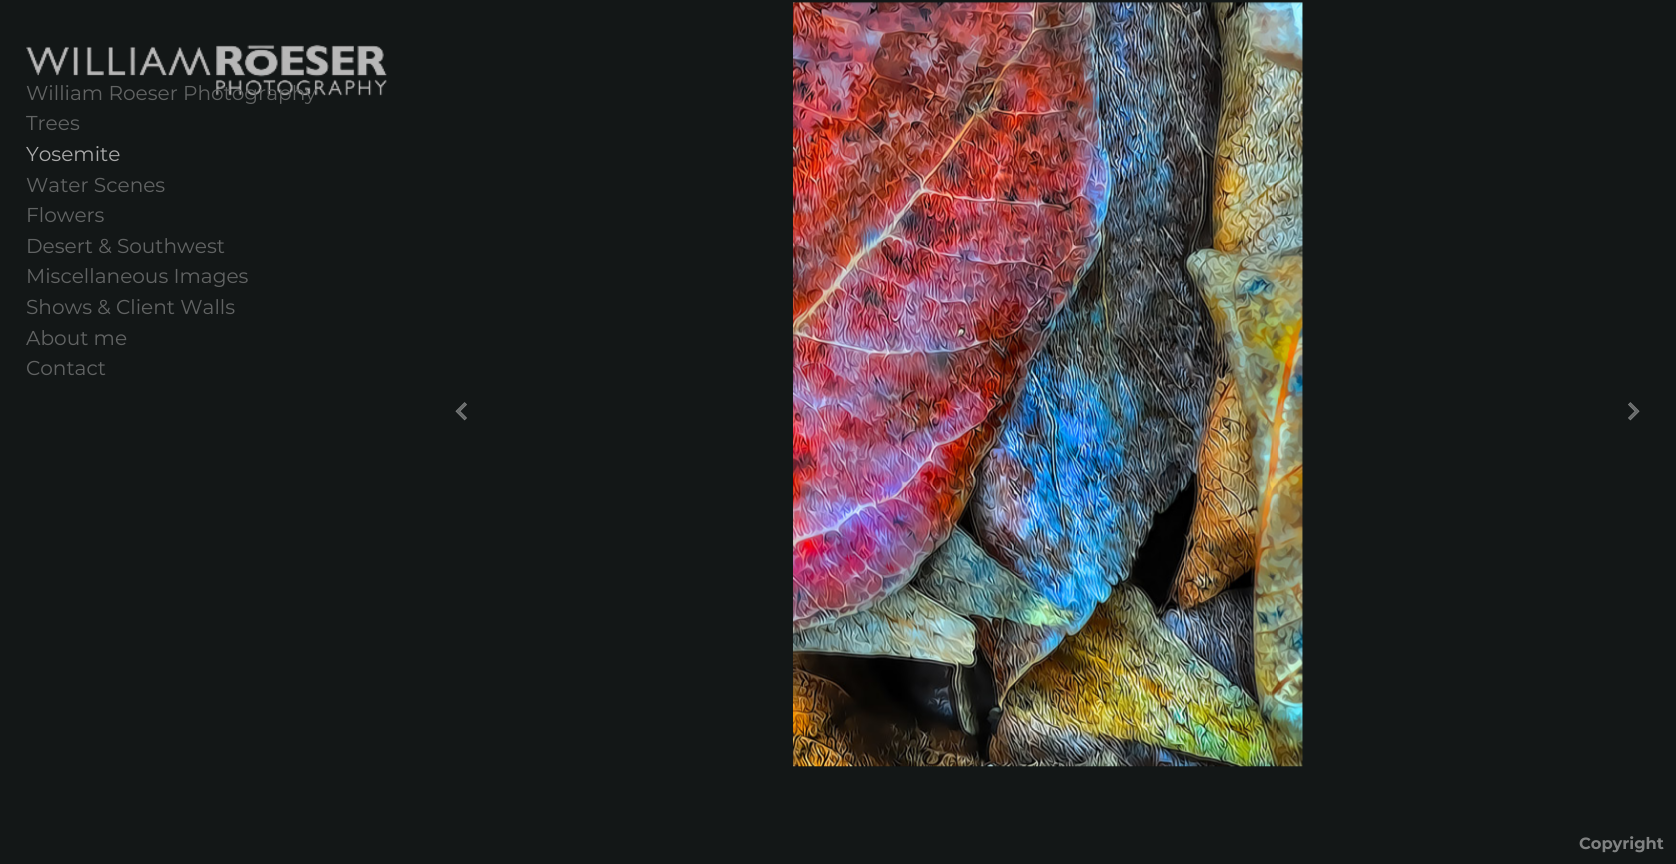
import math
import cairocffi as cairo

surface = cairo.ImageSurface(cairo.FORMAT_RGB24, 1676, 864)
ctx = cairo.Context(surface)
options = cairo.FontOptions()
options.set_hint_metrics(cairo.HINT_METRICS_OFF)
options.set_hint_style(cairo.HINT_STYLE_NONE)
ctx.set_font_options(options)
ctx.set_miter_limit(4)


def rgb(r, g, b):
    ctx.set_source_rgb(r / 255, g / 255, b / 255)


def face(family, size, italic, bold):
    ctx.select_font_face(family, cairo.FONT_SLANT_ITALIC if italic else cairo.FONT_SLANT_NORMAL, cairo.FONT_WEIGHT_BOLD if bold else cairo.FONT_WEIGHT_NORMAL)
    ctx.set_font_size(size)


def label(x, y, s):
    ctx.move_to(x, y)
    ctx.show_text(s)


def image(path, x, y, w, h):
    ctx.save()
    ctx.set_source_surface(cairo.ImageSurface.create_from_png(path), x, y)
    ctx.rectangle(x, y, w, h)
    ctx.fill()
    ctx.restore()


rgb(19, 23, 23)
ctx.paint()
image('image0.png', 26, 44, 361, 52)
face('Montserrat', 20.1, 0, 0)
rgb(97, 99, 99)
label(26, 100, 'William Roeser Photography')
label(26, 130, 'Trees')
rgb(170, 170, 170)
label(26, 161, 'Yosemite')
rgb(97, 99, 99)
label(26, 192, 'Water Scenes')
label(26, 222, 'Flowers')
label(26, 253, 'Desert & Southwest')
label(26, 283, 'Miscellaneous Images')
label(26, 314, 'Shows & Client Walls')
label(26, 345, 'About me')
label(26, 375, 'Contact')
image('image1.png', 455, 402, 12, 19)
image('image2.png', 793, 2, 510, 765)
image('image3.png', 1628, 402, 12, 19)
face('Montserrat', 16.25, 0, 1)
rgb(128, 130, 130)
label(1579, 849, 'Copyright')
surface.write_to_png('render.png')
